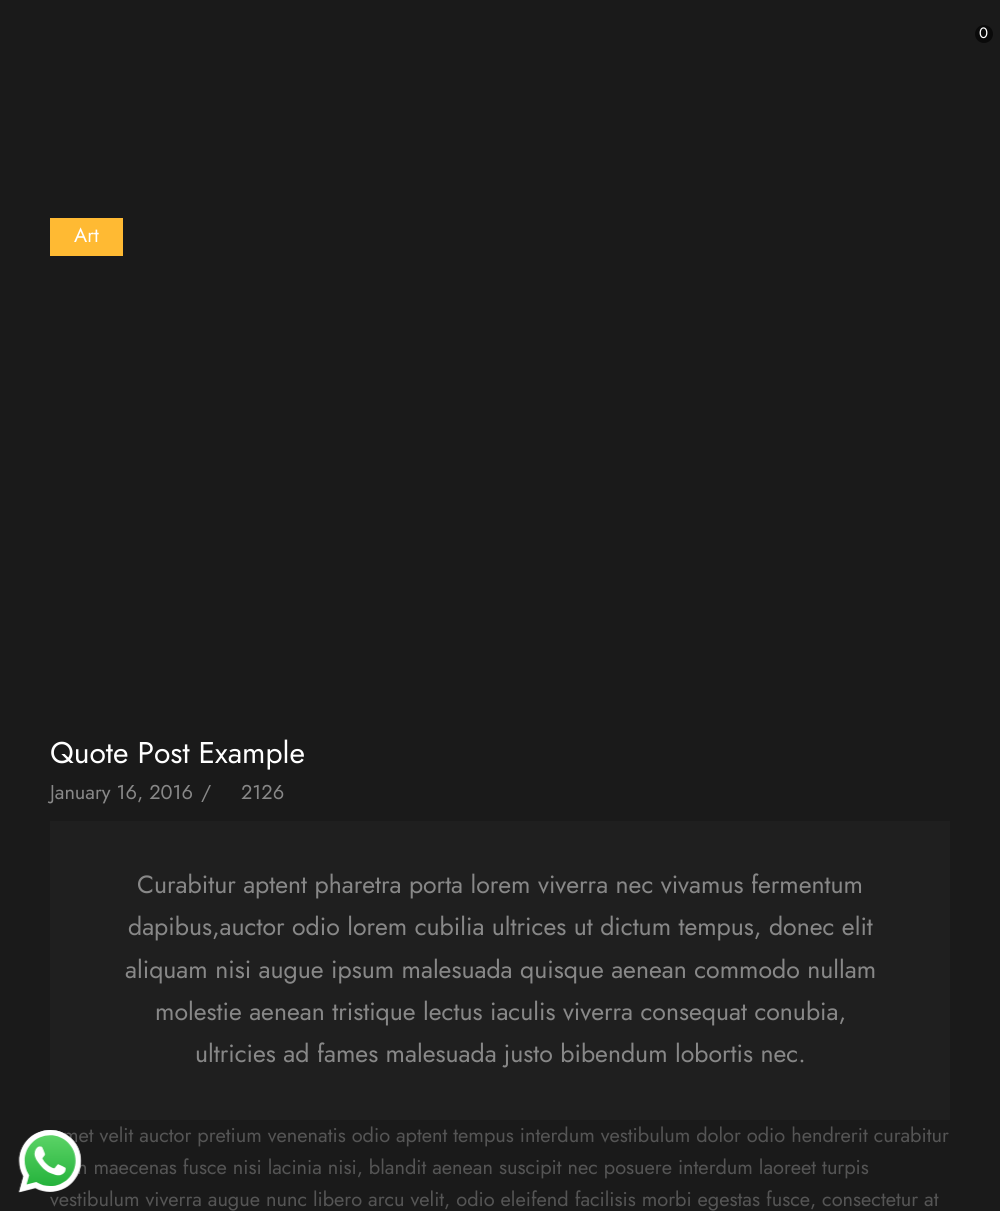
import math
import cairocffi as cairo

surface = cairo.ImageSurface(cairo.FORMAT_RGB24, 1000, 1211)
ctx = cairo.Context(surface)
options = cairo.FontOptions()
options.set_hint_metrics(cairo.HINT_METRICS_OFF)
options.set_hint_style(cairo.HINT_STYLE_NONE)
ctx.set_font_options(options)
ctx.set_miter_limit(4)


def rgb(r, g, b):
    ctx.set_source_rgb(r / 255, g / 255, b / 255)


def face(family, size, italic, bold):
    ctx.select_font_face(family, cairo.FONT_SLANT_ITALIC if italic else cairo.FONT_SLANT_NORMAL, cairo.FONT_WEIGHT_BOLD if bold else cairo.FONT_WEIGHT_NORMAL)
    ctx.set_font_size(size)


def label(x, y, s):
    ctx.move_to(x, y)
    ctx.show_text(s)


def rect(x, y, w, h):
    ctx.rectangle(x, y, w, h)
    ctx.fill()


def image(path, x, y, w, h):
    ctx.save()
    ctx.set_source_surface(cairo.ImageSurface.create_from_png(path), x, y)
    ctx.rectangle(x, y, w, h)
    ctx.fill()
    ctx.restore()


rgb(26, 26, 26)
ctx.paint()
rgb(10, 10, 10)
ctx.arc(984, 34, 9, 0, 2 * math.pi)
ctx.fill()
face('Jost', 15, 0, 0)
rgb(255, 255, 255)
label(979, 38, '0')
rgb(255, 186, 51)
rect(50, 218, 73, 38)
face('Jost', 19.95, 0, 0)
rgb(255, 255, 255)
label(74, 242, 'Art')
face('Jost', 30, 0, 0)
label(50, 763, 'Quote Post Example')
face('Jost', 19.95, 0, 0)
rgb(136, 136, 136)
label(50, 799, 'January 16, 2016')
label(201, 799, '/')
label(241, 799, '2126')
rgb(31, 31, 31)
rect(50, 821, 900, 299)
face('Jost', 24.85, 0, 0)
rgb(136, 136, 136)
label(137, 893, 'Curabitur aptent pharetra porta lorem viverra nec vivamus fermentum')
label(128, 935, 'dapibus,auctor odio lorem cubilia ultrices ut dictum tempus, donec elit')
label(125, 978, 'aliquam nisi augue ipsum malesuada quisque aenean commodo nullam')
label(155, 1020, 'molestie aenean tristique lectus iaculis viverra consequat conubia,')
label(195, 1062, 'ultricies ad fames malesuada justo bibendum lobortis nec.')
face('Jost', 19.95, 0, 0)
rgb(85, 85, 85)
label(63, 1142, 'met velit auctor pretium venenatis odio aptent tempus interdum vestibulum dolor odio hendrerit curabitur')
label(77, 1174, 'h maecenas fusce nisi lacinia nisi, blandit aenean suscipit nec posuere interdum laoreet turpis')
label(50, 1206, 'vestibulum viverra augue nunc libero arcu velit, odio eleifend facilisis morbi egestas fusce, consectetur at')
image('image0.png', 18, 1130, 64, 63)
surface.write_to_png('render.png')
